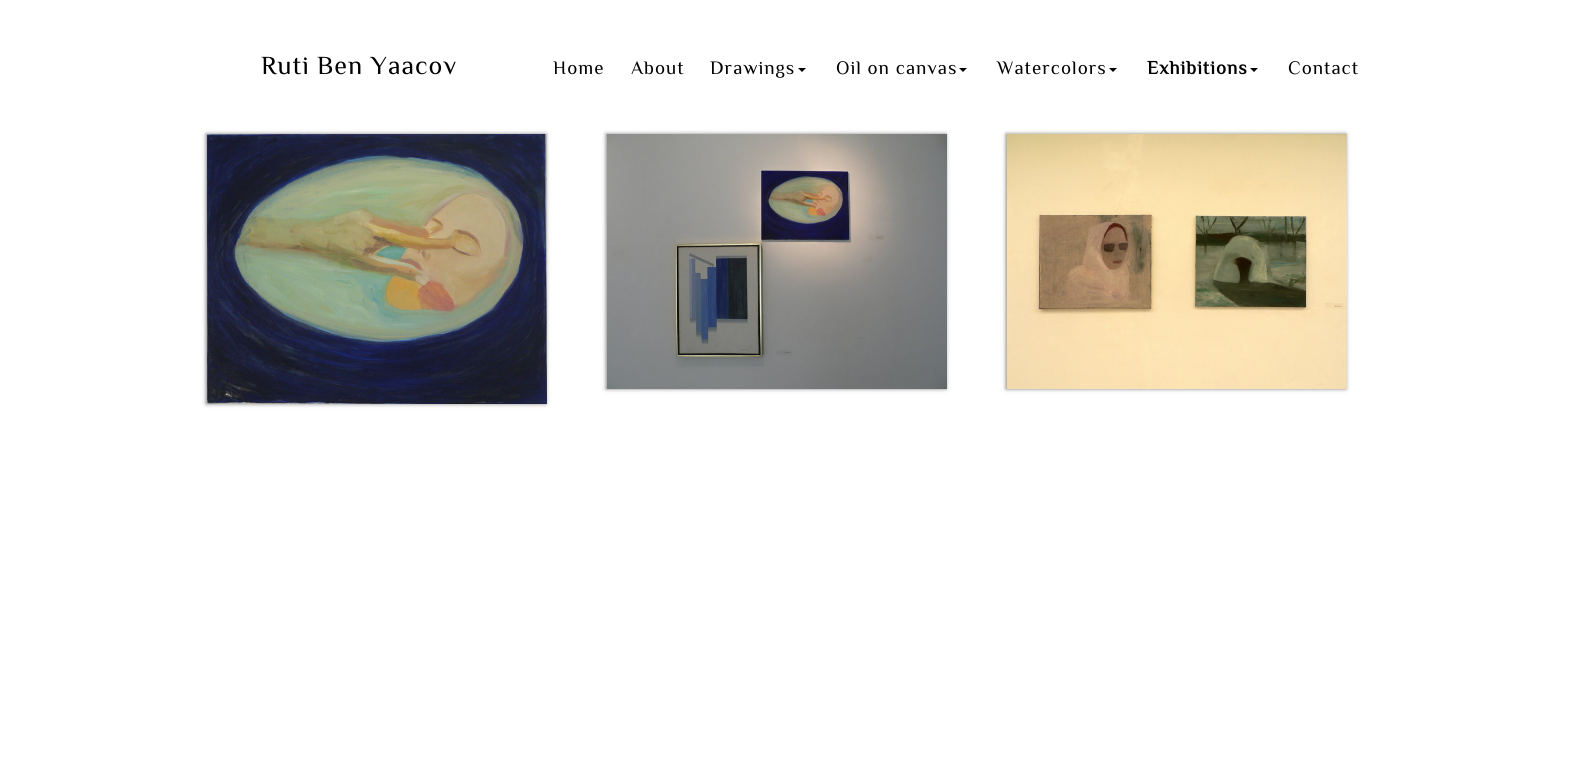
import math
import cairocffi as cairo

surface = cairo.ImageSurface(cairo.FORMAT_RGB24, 1574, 758)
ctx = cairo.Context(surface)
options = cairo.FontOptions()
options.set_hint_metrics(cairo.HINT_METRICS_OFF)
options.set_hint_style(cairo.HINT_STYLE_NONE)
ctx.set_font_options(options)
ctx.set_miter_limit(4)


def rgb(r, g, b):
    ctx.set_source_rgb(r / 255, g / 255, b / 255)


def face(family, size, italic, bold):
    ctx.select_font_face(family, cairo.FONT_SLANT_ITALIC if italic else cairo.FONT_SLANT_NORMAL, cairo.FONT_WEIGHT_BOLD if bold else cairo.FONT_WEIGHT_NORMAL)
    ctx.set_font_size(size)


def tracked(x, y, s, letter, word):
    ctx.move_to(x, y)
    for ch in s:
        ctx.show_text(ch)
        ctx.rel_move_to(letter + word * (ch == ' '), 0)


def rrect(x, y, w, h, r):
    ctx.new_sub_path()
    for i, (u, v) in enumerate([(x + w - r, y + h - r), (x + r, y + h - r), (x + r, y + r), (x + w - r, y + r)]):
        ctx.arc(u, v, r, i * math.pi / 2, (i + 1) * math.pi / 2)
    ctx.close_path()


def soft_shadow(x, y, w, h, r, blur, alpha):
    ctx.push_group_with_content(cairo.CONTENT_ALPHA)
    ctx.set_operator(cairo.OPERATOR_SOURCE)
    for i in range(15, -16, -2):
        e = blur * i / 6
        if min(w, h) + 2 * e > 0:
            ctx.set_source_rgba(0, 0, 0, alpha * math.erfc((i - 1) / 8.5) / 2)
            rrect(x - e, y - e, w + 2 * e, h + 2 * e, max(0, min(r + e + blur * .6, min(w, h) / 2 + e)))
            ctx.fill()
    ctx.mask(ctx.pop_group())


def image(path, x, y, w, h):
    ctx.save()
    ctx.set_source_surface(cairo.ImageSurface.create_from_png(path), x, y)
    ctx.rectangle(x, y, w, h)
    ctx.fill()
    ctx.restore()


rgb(255, 255, 255)
ctx.paint()
face('ZCOOL XiaoWei', 26, 0, 0)
rgb(0, 0, 0)
tracked(261, 74, 'Ruti Ben Yaacov', 1, 0)
face('ZCOOL XiaoWei', 19, 0, 0)
tracked(553, 74, 'Home', 1, 0)
tracked(631, 74, 'About', 1, 0)
tracked(710, 74, 'Drawings', 1, 0)
ctx.new_path()
ctx.move_to(798, 68)
ctx.line_to(806, 68)
ctx.line_to(802, 72)
ctx.close_path()
ctx.fill()
tracked(836, 74, 'Oil on canvas', 1, 0)
ctx.new_path()
ctx.move_to(959, 68)
ctx.line_to(967, 68)
ctx.line_to(963, 72)
ctx.close_path()
ctx.fill()
tracked(997, 74, 'Watercolors', 1, 0)
ctx.new_path()
ctx.move_to(1109, 68)
ctx.line_to(1117, 68)
ctx.line_to(1113, 72)
ctx.close_path()
ctx.fill()
face('ZCOOL XiaoWei', 19, 0, 1)
tracked(1147, 74, 'Exhibitions', 1, 0)
ctx.new_path()
ctx.move_to(1250, 68)
ctx.line_to(1258, 68)
ctx.line_to(1254, 72)
ctx.close_path()
ctx.fill()
face('ZCOOL XiaoWei', 19, 0, 0)
tracked(1288, 74, 'Contact', 1, 0)
rgb(0, 0, 0)
soft_shadow(206, 134, 340, 270, 0, 2, 0.5)
image('image0.png', 207, 134, 340, 270)
soft_shadow(606, 134, 340, 255, 0, 2, 0.5)
image('image1.png', 607, 134, 340, 255)
soft_shadow(1006, 134, 340, 255, 0, 2, 0.5)
image('image2.png', 1007, 134, 340, 255)
surface.write_to_png('render.png')
